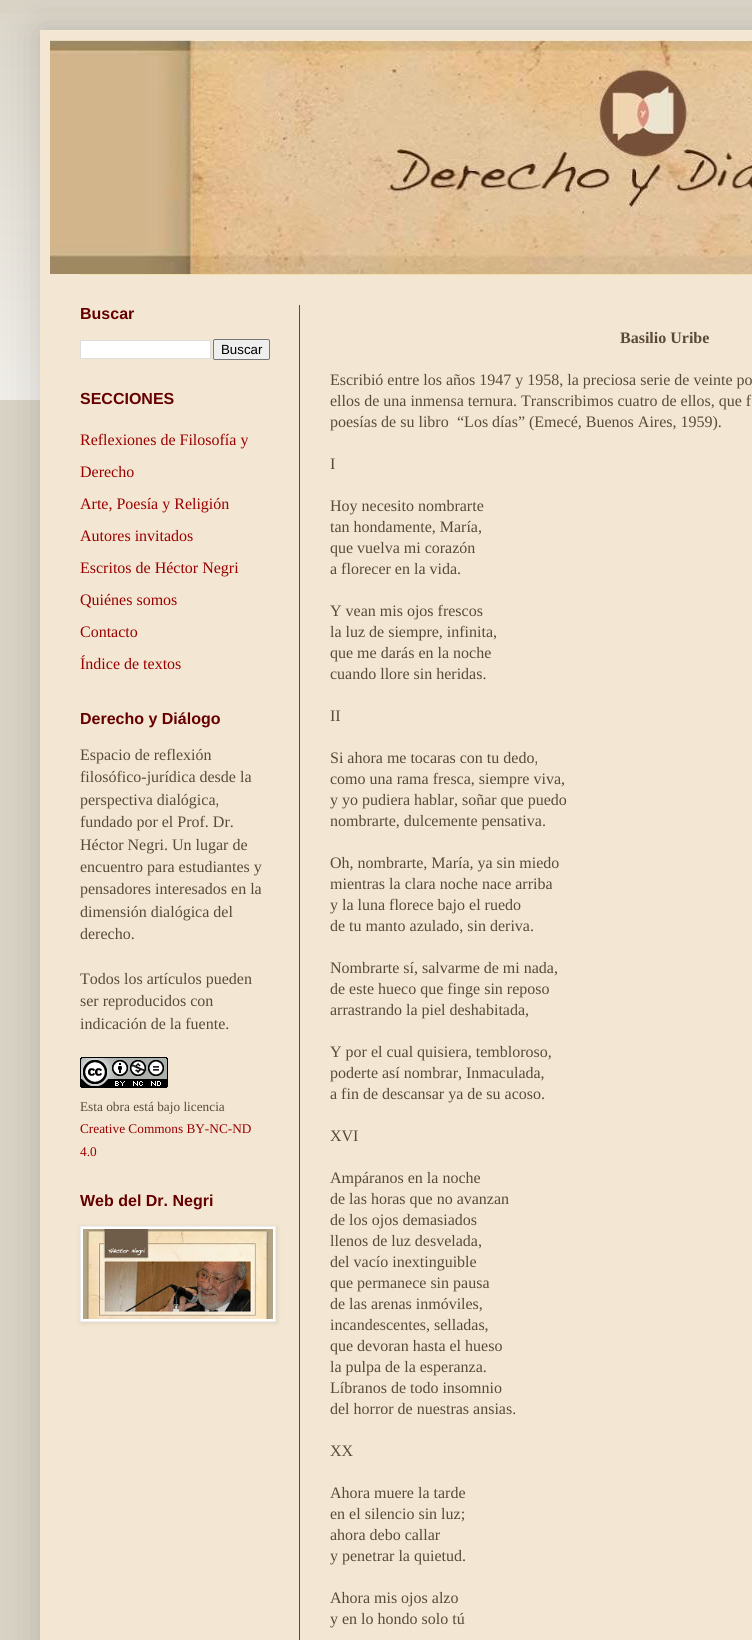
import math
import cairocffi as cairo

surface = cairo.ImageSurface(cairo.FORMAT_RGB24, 752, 1640)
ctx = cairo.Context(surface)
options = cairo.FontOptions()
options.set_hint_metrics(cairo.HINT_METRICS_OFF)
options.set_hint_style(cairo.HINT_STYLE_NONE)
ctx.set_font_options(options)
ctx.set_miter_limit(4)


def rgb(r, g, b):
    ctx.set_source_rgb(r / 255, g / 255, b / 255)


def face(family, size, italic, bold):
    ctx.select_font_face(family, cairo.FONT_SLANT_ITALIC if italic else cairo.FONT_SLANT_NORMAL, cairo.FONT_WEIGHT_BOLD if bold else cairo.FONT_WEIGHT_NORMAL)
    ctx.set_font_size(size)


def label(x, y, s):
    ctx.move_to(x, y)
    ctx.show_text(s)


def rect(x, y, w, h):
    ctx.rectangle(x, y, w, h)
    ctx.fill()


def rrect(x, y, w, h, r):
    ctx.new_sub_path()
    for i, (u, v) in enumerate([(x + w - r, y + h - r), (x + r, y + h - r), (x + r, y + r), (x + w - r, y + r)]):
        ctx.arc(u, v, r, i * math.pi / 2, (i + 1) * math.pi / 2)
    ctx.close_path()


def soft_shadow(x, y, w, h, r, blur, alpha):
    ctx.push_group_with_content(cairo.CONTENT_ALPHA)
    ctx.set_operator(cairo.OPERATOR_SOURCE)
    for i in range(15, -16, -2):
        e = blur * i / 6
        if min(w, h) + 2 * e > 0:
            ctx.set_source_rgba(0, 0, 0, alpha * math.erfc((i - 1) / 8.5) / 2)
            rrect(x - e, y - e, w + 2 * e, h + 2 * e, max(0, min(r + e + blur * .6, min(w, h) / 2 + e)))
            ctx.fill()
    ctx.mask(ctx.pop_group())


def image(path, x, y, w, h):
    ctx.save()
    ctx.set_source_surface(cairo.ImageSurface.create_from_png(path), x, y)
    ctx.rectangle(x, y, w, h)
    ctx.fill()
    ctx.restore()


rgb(217, 211, 198)
ctx.paint()
image('image0.png', 0, 13, 752, 387)
rgb(0, 0, 0)
soft_shadow(40, 30, 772, 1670, 0, 20, 0.15)
rgb(243, 231, 211)
rect(40, 30, 712, 1610)
image('image1.png', 50, 40, 702, 234)
rgb(244, 222, 169)
rect(80, 274, 672, 1)
rgb(90, 74, 57)
rect(299, 305, 1, 1335)
face('Liberation Sans', 16, 0, 1)
rgb(102, 0, 0)
label(80, 319, 'Buscar')
rgb(255, 255, 255)
ctx.rectangle(80.5, 340.5, 130, 18)
ctx.fill_preserve()
rgb(221, 221, 221)
ctx.set_line_width(1)
ctx.stroke()
rgb(239, 239, 239)
rrect(213.5, 339.5, 56, 20, 1.5)
ctx.fill_preserve()
rgb(118, 118, 118)
ctx.stroke()
face('Liberation Sans', 13.3, 0, 0)
rgb(0, 0, 0)
label(221, 354, 'Buscar')
face('Liberation Sans', 16, 0, 1)
rgb(102, 0, 0)
label(80, 404, 'SECCIONES')
face('Liberation Serif', 16, 0, 0)
rgb(153, 0, 0)
label(80, 445, 'Reflexiones de Filosofía y')
label(80, 477, 'Derecho')
label(80, 509, 'Arte, Poesía y Religión')
label(80, 541, 'Autores invitados')
label(80, 573, 'Escritos de Héctor Negri')
label(80, 605, 'Quiénes somos')
label(80, 637, 'Contacto')
label(80, 669, 'Índice de textos')
face('Liberation Sans', 16, 0, 1)
rgb(102, 0, 0)
label(80, 724, 'Derecho y Diálogo')
face('Liberation Serif', 16, 0, 0)
rgb(90, 74, 57)
label(80, 760, 'Espacio de reflexión')
label(80, 782, 'filosófico-jurídica desde la')
label(80, 805, 'perspectiva dialógica,')
label(80, 827, 'fundado por el Prof. Dr.')
label(80, 850, 'Héctor Negri. Un lugar de')
label(80, 872, 'encuentro para estudiantes y')
label(80, 894, 'pensadores interesados en la')
label(80, 917, 'dimensión dialógica del')
label(80, 939, 'derecho.')
label(80, 984, 'Todos los artículos pueden')
label(80, 1006, 'ser reproducidos con')
label(80, 1029, 'indicación de la fuente.')
image('image2.png', 80, 1057, 88, 31)
face('Liberation Serif', 13.3, 0, 0)
label(80, 1111, 'Esta obra está bajo licencia')
rgb(153, 0, 0)
label(80, 1133, 'Creative Commons BY-NC-ND')
label(80, 1156, '4.0')
face('Liberation Sans', 16, 0, 1)
rgb(102, 0, 0)
label(80, 1206, 'Web del Dr. Negri')
rgb(0, 0, 0)
soft_shadow(81, 1227, 196, 96, 0, 2.5, 0.1)
rgb(255, 255, 255)
ctx.rectangle(80.5, 1226.5, 195, 95)
ctx.fill_preserve()
rgb(238, 238, 238)
ctx.stroke()
image('image3.png', 83, 1229, 190, 90)
face('Liberation Serif', 16, 0, 1)
rgb(90, 74, 57)
label(620, 343, 'Basilio Uribe')
face('Liberation Serif', 16, 0, 0)
label(330, 385, 'Escribió entre los años 1947 y 1958, la preciosa serie de veinte po')
label(330, 406, 'ellos de una inmensa ternura. Transcribimos cuatro de ellos, que f')
label(330, 427, 'poesías de su libro')
label(457, 427, '“Los días” (Emecé, Buenos Aires, 1959).')
label(330, 469, 'I')
label(330, 511, 'Hoy necesito nombrarte')
label(330, 532, 'tan hondamente, María,')
label(330, 553, 'que vuelva mi corazón')
label(330, 574, 'a florecer en la vida.')
label(330, 616, 'Y vean mis ojos frescos')
label(330, 637, 'la luz de siempre, infinita,')
label(330, 658, 'que me darás en la noche')
label(330, 679, 'cuando llore sin heridas.')
label(330, 721, 'II')
label(330, 763, 'Si ahora me tocaras con tu dedo,')
label(330, 784, 'como una rama fresca, siempre viva,')
label(330, 805, 'y yo pudiera hablar, soñar que puedo')
label(330, 826, 'nombrarte, dulcemente pensativa.')
label(330, 868, 'Oh, nombrarte, María, ya sin miedo')
label(330, 889, 'mientras la clara noche nace arriba')
label(330, 910, 'y la luna florece bajo el ruedo')
label(330, 931, 'de tu manto azulado, sin deriva.')
label(330, 973, 'Nombrarte sí, salvarme de mi nada,')
label(330, 994, 'de este hueco que finge sin reposo')
label(330, 1015, 'arrastrando la piel deshabitada,')
label(330, 1057, 'Y por el cual quisiera, tembloroso,')
label(330, 1078, 'poderte así nombrar, Inmaculada,')
label(330, 1099, 'a fin de descansar ya de su acoso.')
label(330, 1141, 'XVI')
label(330, 1183, 'Ampáranos en la noche')
label(330, 1204, 'de las horas que no avanzan')
label(330, 1225, 'de los ojos demasiados')
label(330, 1246, 'llenos de luz desvelada,')
label(330, 1267, 'del vacío inextinguible')
label(330, 1288, 'que permanece sin pausa')
label(330, 1309, 'de las arenas inmóviles,')
label(330, 1330, 'incandescentes, selladas,')
label(330, 1351, 'que devoran hasta el hueso')
label(330, 1372, 'la pulpa de la esperanza.')
label(330, 1393, 'Líbranos de todo insomnio')
label(330, 1414, 'del horror de nuestras ansias.')
label(330, 1456, 'XX')
label(330, 1498, 'Ahora muere la tarde')
label(330, 1519, 'en el silencio sin luz;')
label(330, 1540, 'ahora debo callar')
label(330, 1561, 'y penetrar la quietud.')
label(330, 1603, 'Ahora mis ojos alzo')
label(330, 1624, 'y en lo hondo solo tú')
surface.write_to_png('render.png')
